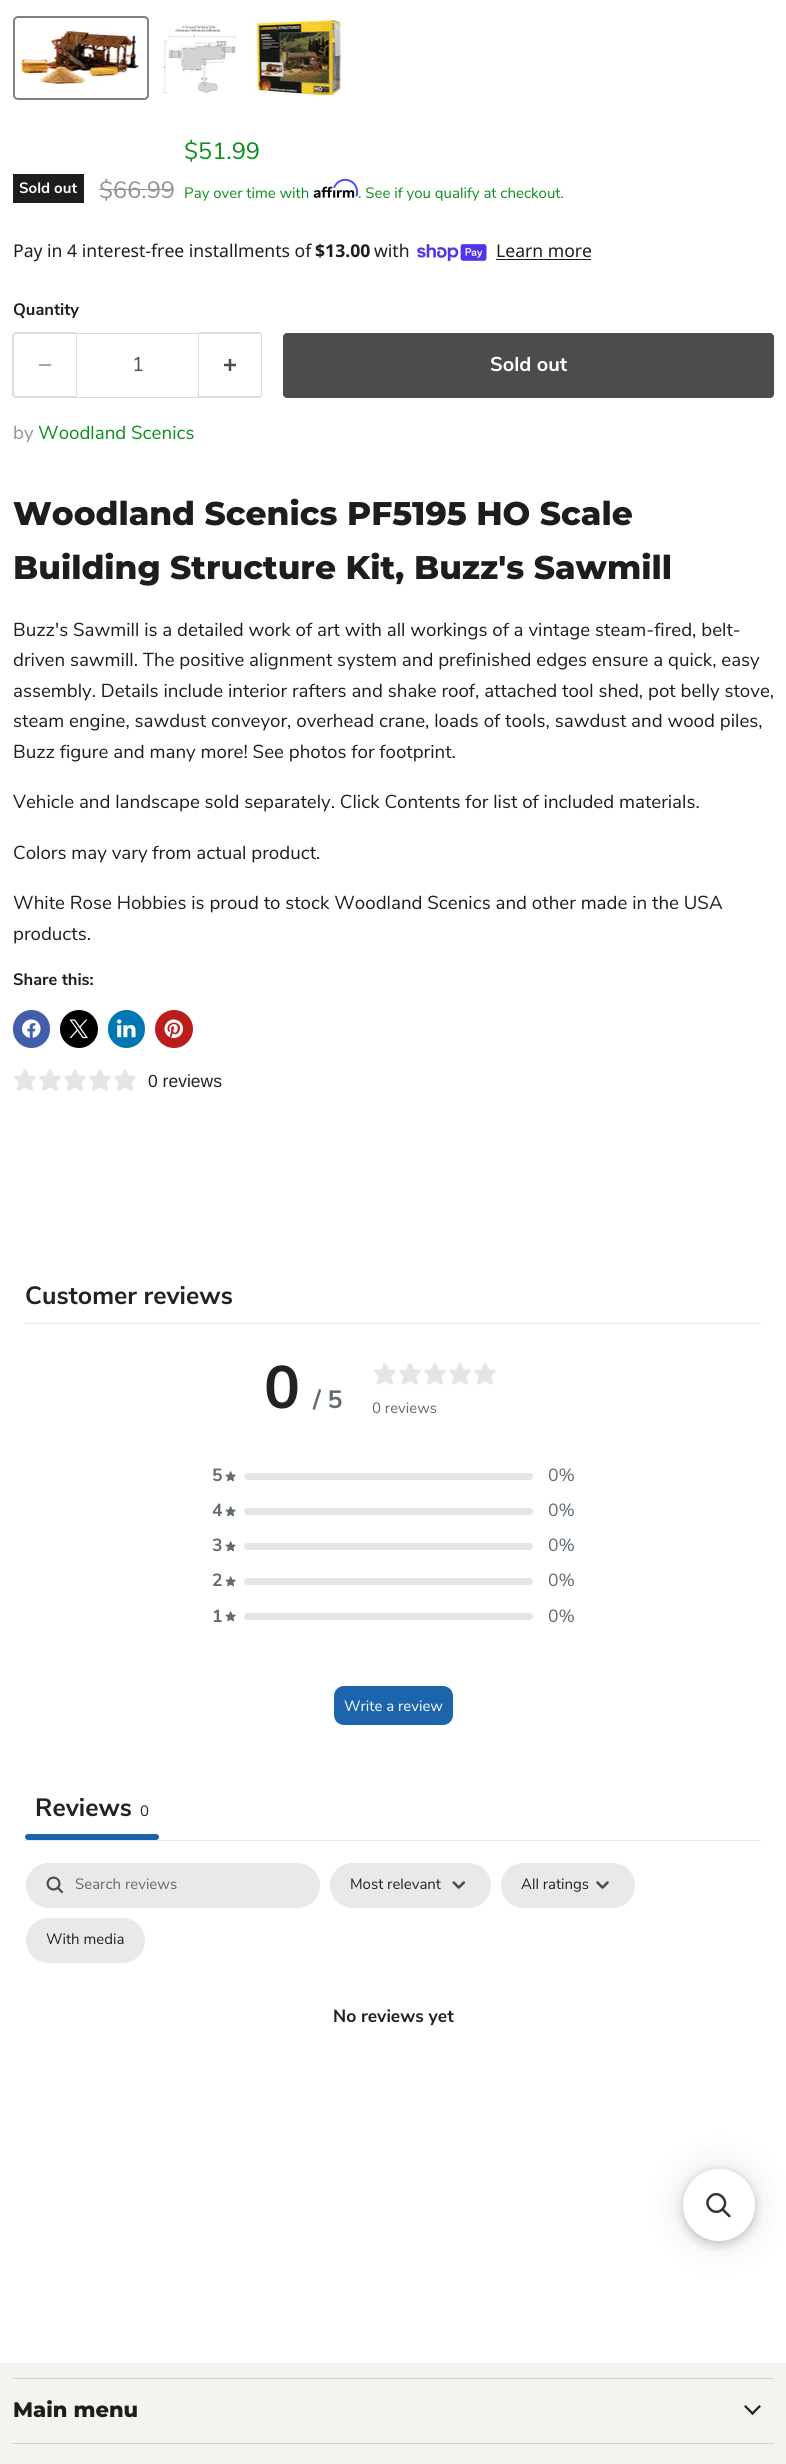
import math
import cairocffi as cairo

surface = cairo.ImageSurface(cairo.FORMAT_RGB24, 786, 2464)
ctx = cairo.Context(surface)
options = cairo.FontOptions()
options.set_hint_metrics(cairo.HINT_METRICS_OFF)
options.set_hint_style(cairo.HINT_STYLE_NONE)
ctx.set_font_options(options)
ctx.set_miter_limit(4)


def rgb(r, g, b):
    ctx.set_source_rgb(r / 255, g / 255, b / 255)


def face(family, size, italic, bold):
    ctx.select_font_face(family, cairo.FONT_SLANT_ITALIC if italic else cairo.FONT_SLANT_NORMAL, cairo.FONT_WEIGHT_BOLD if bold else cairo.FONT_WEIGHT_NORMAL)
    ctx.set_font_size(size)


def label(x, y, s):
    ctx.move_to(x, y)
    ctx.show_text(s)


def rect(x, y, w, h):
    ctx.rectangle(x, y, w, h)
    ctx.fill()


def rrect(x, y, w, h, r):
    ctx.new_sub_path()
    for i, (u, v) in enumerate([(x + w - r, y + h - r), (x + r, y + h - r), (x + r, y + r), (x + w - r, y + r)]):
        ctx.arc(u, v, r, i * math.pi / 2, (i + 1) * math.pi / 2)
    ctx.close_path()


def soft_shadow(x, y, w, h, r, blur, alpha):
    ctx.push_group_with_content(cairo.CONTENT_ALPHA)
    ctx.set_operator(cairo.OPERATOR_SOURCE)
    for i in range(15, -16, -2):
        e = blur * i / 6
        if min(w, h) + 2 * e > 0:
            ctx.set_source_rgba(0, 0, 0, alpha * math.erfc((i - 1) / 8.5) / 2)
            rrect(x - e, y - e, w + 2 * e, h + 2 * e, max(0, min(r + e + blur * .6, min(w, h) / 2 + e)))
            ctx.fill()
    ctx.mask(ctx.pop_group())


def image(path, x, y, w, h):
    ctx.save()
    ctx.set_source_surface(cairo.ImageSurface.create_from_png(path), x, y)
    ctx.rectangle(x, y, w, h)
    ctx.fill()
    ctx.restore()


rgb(255, 255, 255)
ctx.paint()
rrect(14, 17, 134, 82, 4)
rgb(129, 129, 129)
ctx.stroke()
image('image0.png', 18, 28, 121, 57)
image('image1.png', 160, 24, 76, 70)
image('image2.png', 254, 20, 88, 75)
rgb(29, 29, 29)
rect(13, 174, 71, 29)
face('Nunito Sans', 15, 0, 1)
rgb(255, 255, 255)
label(19, 193, 'Sold out')
face('Nunito Sans', 23.5, 0, 0)
rgb(148, 148, 148)
label(99, 198, '$66.99')
rect(99, 189, 75, 1)
rgb(10, 142, 29)
label(184, 159, '$51.99')
face('Nunito Sans', 15, 0, 0)
label(184, 198, 'Pay over time with')
image('image4.png', 313, 186, 42, 12)
image('image3.png', 333, 178, 25, 19)
label(358, 198, '. See if you qualify at checkout.')
face('Noto Sans', 17.6, 0, 0)
rgb(29, 29, 29)
label(13, 257, 'Pay in 4 interest-free installments of')
face('Noto Sans', 17.6, 0, 1)
label(315, 257, '$13.00')
face('Noto Sans', 17.6, 0, 0)
label(374, 257, 'with')
image('image5.png', 417, 244, 70, 17)
label(496, 257, 'Learn more')
rect(496, 259, 95, 1)
face('Nunito Sans', 16.5, 0, 1)
label(13, 315, 'Quantity')
rgb(221, 221, 221)
ctx.set_fill_rule(cairo.FILL_RULE_EVEN_ODD)
ctx.new_path()
ctx.move_to(16, 332)
ctx.line_to(76, 332)
ctx.line_to(76, 398)
ctx.line_to(16, 398)
ctx.curve_to(14, 398, 12, 396, 12, 394)
ctx.line_to(12, 336)
ctx.curve_to(12, 334, 14, 332, 16, 332)
ctx.close_path()
ctx.move_to(16, 334)
ctx.line_to(76, 334)
ctx.line_to(76, 396)
ctx.line_to(16, 396)
ctx.curve_to(15, 396, 14, 395, 14, 394)
ctx.line_to(14, 336)
ctx.curve_to(14, 335, 15, 334, 16, 334)
ctx.close_path()
ctx.fill()
rgb(166, 166, 166)
rect(39, 364, 12, 2)
ctx.rectangle(76.5, 333.5, 122, 64)
rgb(221, 221, 221)
ctx.set_line_width(1)
ctx.stroke()
face('Nunito Sans', 20, 0, 0)
rgb(77, 77, 77)
label(132, 371, '1')
rgb(221, 221, 221)
ctx.new_path()
ctx.move_to(199, 332)
ctx.line_to(259, 332)
ctx.curve_to(261, 332, 262, 334, 262, 336)
ctx.line_to(262, 394)
ctx.curve_to(262, 396, 261, 398, 259, 398)
ctx.line_to(199, 398)
ctx.close_path()
ctx.move_to(199, 334)
ctx.line_to(259, 334)
ctx.curve_to(260, 334, 261, 335, 261, 336)
ctx.line_to(261, 394)
ctx.curve_to(261, 395, 260, 396, 259, 396)
ctx.line_to(199, 396)
ctx.close_path()
ctx.fill()
image('image6.png', 224, 359, 12, 12)
rgb(76, 76, 76)
rrect(283.5, 333.5, 490, 64, 3.5)
ctx.fill_preserve()
ctx.stroke()
face('Nunito Sans', 20, 0, 1)
rgb(255, 255, 255)
label(490, 371, 'Sold out')
face('Nunito Sans', 18.75, 0, 0)
rgb(148, 148, 148)
label(13, 439, 'by')
rgb(10, 142, 29)
label(38, 439, 'Woodland Scenics')
face('Montserrat ExtraBold', 32.8, 0, 0)
rgb(29, 29, 29)
label(13, 525, 'Woodland Scenics PF5195 HO Scale')
label(13, 579, 'Building Structure Kit, Buzz\'s Sawmill')
face('Nunito Sans', 18.75, 0, 0)
label(13, 636, 'Buzz\'s Sawmill is a detailed work of art with all workings of a vintage steam-fired, belt-')
label(13, 666, 'driven sawmill. The positive alignment system and prefinished edges ensure a quick, easy')
label(13, 697, 'assembly. Details include interior rafters and shake roof, attached tool shed, pot belly stove,')
label(13, 727, 'steam engine, sawdust conveyor, overhead crane, loads of tools, sawdust and wood piles,')
label(13, 758, 'Buzz figure and many more! See photos for footprint.')
label(13, 808, 'Vehicle and landscape sold separately. Click Contents for list of included materials.')
label(13, 859, 'Colors may vary from actual product.')
label(13, 909, 'White Rose Hobbies is proud to stock Woodland Scenics and other made in the USA')
label(13, 940, 'products.')
face('Nunito Sans', 16.5, 0, 1)
label(13, 985, 'Share this:')
rgb(66, 93, 171)
rrect(13, 1010, 37, 38, 18.5)
ctx.fill()
image('image7.png', 22, 1019, 19, 19)
rgb(0, 0, 0)
ctx.arc(79, 1029, 19, 0, 2 * math.pi)
ctx.fill()
image('image8.png', 69, 1019, 19, 20)
rgb(0, 119, 181)
rrect(108, 1010, 37, 38, 18.5)
ctx.fill()
image('image9.png', 117, 1019, 19, 19)
rgb(189, 28, 28)
ctx.arc(174, 1029, 19, 0, 2 * math.pi)
ctx.fill()
image('image10.png', 164, 1019, 19, 20)
image('image11.png', 14, 1069, 22, 22)
image('image11.png', 39, 1069, 22, 22)
image('image11.png', 64, 1069, 22, 22)
image('image11.png', 89, 1069, 22, 22)
image('image11.png', 114, 1069, 22, 22)
face('Liberation Sans', 17.5, 0, 0)
rgb(32, 34, 35)
label(148, 1087, '0 reviews')
rgb(233, 233, 235)
rect(25, 1323, 736, 1)
face('Nunito Sans', 25, 0, 1)
rgb(32, 34, 35)
label(25, 1304, 'Customer reviews')
face('Nunito Sans', 60, 0, 1)
label(264, 1408, '0')
face('Nunito Sans', 25, 0, 1)
rgb(96, 106, 114)
label(313, 1408, '/ 5')
image('image12.png', 374, 1363, 22, 22)
image('image12.png', 399, 1363, 22, 22)
image('image12.png', 424, 1363, 22, 22)
image('image12.png', 449, 1363, 22, 22)
image('image12.png', 474, 1363, 22, 22)
face('Nunito Sans', 15, 0, 0)
label(372, 1413, '0 reviews')
face('Nunito Sans', 17.6, 0, 1)
label(212, 1481, '5')
image('image13.png', 225, 1471, 11, 11)
rgb(229, 229, 229)
rrect(244, 1473, 289, 7, 3.5)
ctx.fill()
face('Nunito Sans', 17.6, 0, 0)
rgb(96, 106, 114)
label(548, 1481, '0%')
face('Nunito Sans', 17.6, 0, 1)
label(212, 1516, '4')
image('image13.png', 225, 1506, 11, 11)
rgb(229, 229, 229)
rrect(244, 1508, 289, 7, 3.5)
ctx.fill()
face('Nunito Sans', 17.6, 0, 0)
rgb(96, 106, 114)
label(548, 1516, '0%')
face('Nunito Sans', 17.6, 0, 1)
label(212, 1551, '3')
image('image13.png', 225, 1541, 11, 11)
rgb(229, 229, 229)
rrect(244, 1543, 289, 7, 3.5)
ctx.fill()
face('Nunito Sans', 17.6, 0, 0)
rgb(96, 106, 114)
label(548, 1551, '0%')
face('Nunito Sans', 17.6, 0, 1)
label(212, 1586, '2')
image('image13.png', 225, 1576, 11, 11)
rgb(229, 229, 229)
rrect(244, 1578, 289, 7, 3.5)
ctx.fill()
face('Nunito Sans', 17.6, 0, 0)
rgb(96, 106, 114)
label(548, 1586, '0%')
face('Nunito Sans', 17.6, 0, 1)
label(212, 1622, '1')
image('image13.png', 225, 1611, 11, 11)
rgb(229, 229, 229)
rrect(244, 1613, 289, 7, 3.5)
ctx.fill()
face('Nunito Sans', 17.6, 0, 0)
rgb(96, 106, 114)
label(548, 1622, '0%')
rgb(233, 233, 235)
rect(25, 1840, 736, 1)
rgb(28, 101, 173)
rrect(334, 1686, 119, 39, 10)
ctx.fill()
face('Nunito Sans', 15, 0, 0)
rgb(255, 255, 255)
label(344, 1711, 'Write a review')
face('Nunito Sans', 25, 0, 1)
rgb(32, 34, 35)
label(35, 1816, 'Reviews')
face('Nunito Sans', 15, 0, 0)
label(140, 1816, '0')
rgb(28, 101, 173)
rrect(25, 1834, 134, 6, 3)
ctx.fill()
rgb(233, 233, 233)
rrect(26, 1863, 294, 45, 22.5)
ctx.fill()
image('image14.png', 46, 1876, 18, 18)
rgb(96, 106, 114)
label(75, 1889, 'Search reviews')
rgb(233, 233, 233)
rrect(330, 1863, 161, 45, 22.5)
ctx.fill()
rgb(32, 34, 35)
label(350, 1889, 'Most relevant')
image('image15.png', 452, 1881, 14, 8)
rgb(233, 233, 233)
rrect(501, 1863, 134, 45, 22.5)
ctx.fill()
rgb(32, 34, 35)
label(521, 1889, 'All ratings')
image('image16.png', 596, 1881, 13, 8)
rgb(233, 233, 233)
rrect(26, 1918, 119, 45, 22.5)
ctx.fill()
rgb(32, 34, 35)
label(46, 1944, 'With media')
face('Nunito Sans', 17.6, 0, 1)
label(333, 2022, 'No reviews yet')
rgb(0, 0, 0)
soft_shadow(683, 2174, 72, 72, 36, 5, 0.05)
soft_shadow(683, 2171, 72, 73, 36, 5, 0.15)
soft_shadow(683, 2169, 72, 72, 36, 19, 0.1)
rgb(255, 255, 255)
ctx.arc(719, 2205, 36, 0, 2 * math.pi)
ctx.fill()
ctx.new_path()
ctx.move_to(710, 2197)
ctx.curve_to(718, 2188.5, 730.5, 2201, 722.5, 2209)
ctx.curve_to(714.5, 2217.5, 702, 2205, 710, 2197)
ctx.close_path()
rgb(51, 51, 51)
ctx.set_line_width(2.5)
ctx.stroke()
ctx.set_fill_rule(cairo.FILL_RULE_WINDING)
ctx.new_path()
ctx.move_to(721.5, 2210)
ctx.line_to(723.5, 2208.5)
ctx.line_to(730.5, 2215.5)
ctx.curve_to(731.5, 2216.5, 729.5, 2218, 728.5, 2217)
ctx.close_path()
ctx.fill()
rgb(245, 243, 237)
rect(0, 2363, 786, 101)
rgb(213, 211, 206)
rect(13, 2378, 761, 1)
rect(13, 2443, 761, 1)
face('Montserrat ExtraBold', 21, 0, 0)
rgb(29, 29, 29)
label(13, 2417, 'Main menu')
image('image17.png', 744, 2405, 17, 10)
surface.write_to_png('render.png')
